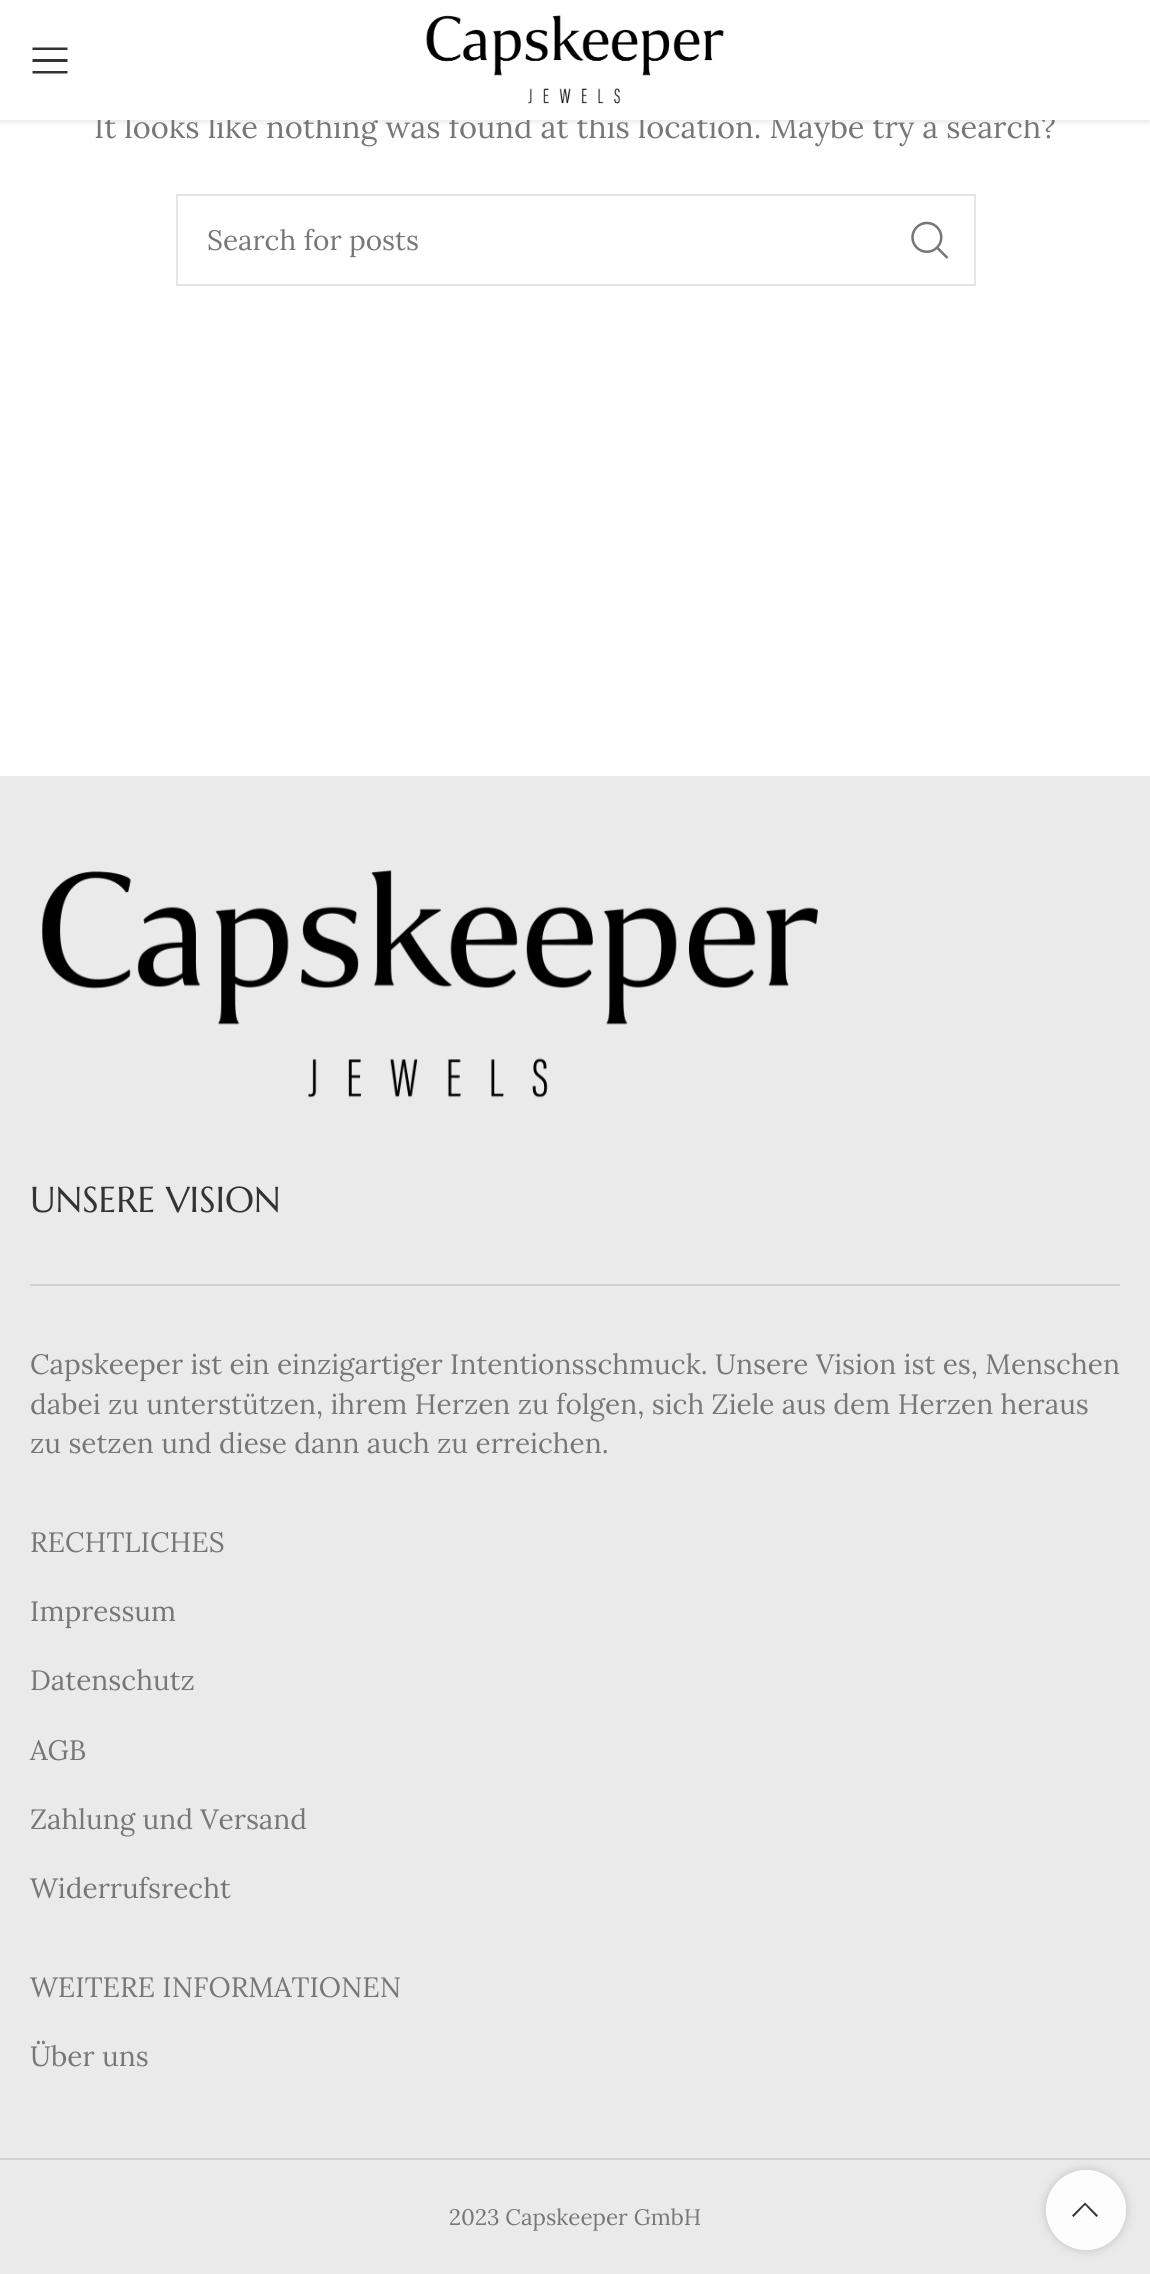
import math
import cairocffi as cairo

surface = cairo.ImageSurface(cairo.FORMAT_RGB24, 1150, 2274)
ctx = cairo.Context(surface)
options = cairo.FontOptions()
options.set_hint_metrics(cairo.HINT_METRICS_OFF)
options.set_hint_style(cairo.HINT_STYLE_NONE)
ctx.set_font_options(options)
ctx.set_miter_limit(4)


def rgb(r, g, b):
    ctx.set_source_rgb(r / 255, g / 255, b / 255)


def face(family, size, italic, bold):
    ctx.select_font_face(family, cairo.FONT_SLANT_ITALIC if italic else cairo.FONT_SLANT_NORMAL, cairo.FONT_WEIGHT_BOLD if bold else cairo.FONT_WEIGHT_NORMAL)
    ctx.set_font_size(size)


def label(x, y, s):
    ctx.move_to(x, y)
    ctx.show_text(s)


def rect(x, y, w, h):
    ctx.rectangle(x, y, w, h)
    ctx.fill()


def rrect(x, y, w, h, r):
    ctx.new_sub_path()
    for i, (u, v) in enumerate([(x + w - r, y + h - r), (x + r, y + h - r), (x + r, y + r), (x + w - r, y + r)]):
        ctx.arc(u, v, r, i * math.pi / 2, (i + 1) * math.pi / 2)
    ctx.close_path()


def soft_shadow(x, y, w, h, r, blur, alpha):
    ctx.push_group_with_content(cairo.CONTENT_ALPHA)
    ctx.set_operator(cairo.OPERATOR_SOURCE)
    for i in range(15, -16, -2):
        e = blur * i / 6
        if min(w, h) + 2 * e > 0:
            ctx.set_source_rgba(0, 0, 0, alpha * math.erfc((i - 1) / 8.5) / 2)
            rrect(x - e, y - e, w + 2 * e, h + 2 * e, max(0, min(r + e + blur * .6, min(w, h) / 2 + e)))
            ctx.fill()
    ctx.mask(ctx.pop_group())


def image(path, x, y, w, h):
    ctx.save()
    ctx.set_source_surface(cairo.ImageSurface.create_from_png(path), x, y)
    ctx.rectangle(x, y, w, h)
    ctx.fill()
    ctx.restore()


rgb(255, 255, 255)
ctx.paint()
rgb(0, 0, 0)
soft_shadow(0, 2, 1150, 120, 0, 3, 0.1)
face('Lora', 30.8, 0, 0)
rgb(119, 119, 119)
label(94, 138, 'It looks like nothing was found at this location. Maybe try a search?')
rgb(255, 255, 255)
rect(0, 0, 1150, 120)
rgb(51, 51, 51)
ctx.new_path()
ctx.move_to(32.5, 50)
ctx.line_to(67.5, 50)
ctx.line_to(67.5, 47.5)
ctx.line_to(32.5, 47.5)
ctx.close_path()
ctx.move_to(32.5, 62)
ctx.line_to(67.5, 62)
ctx.line_to(67.5, 59)
ctx.line_to(32.5, 59)
ctx.close_path()
ctx.move_to(32.5, 73.5)
ctx.line_to(67.5, 73.5)
ctx.line_to(67.5, 71)
ctx.line_to(32.5, 71)
ctx.close_path()
ctx.fill()
image('image0.png', 426, 15, 298, 89)
ctx.rectangle(177, 195, 798, 90)
rgb(230, 230, 230)
ctx.stroke()
face('Lora', 28, 0, 0)
rgb(119, 119, 119)
label(207, 250, 'Search for posts')
image('image1.png', 911, 221, 38, 38)
rgb(234, 234, 234)
rect(0, 776, 1150, 1498)
image('image2.png', 42, 870, 776, 228)
rgb(209, 209, 209)
rect(30, 1284, 1090, 2)
face('Marcellus SC', 36, 0, 0)
rgb(51, 51, 51)
label(30, 1212, 'UNSERE VISION')
face('Lora', 28, 0, 0)
rgb(119, 119, 119)
label(30, 1374, 'Capskeeper ist ein einzigartiger Intentionsschmuck. Unsere Vision ist es, Menschen')
label(30, 1414, 'dabei zu unterstützen, ihrem Herzen zu folgen, sich Ziele aus dem Herzen heraus')
label(30, 1453, 'zu setzen und diese dann auch zu erreichen.')
label(30, 1552, 'RECHTLICHES')
label(30, 1621, 'Impressum')
label(30, 1690, 'Datenschutz')
label(30, 1760, 'AGB')
label(30, 1829, 'Zahlung und Versand')
label(30, 1898, 'Widerrufsrecht')
label(30, 1997, 'WEITERE INFORMATIONEN')
label(30, 2066, 'Über uns')
rgb(209, 209, 209)
rect(0, 2158, 1150, 2)
face('Lora', 22.4, 0, 0)
rgb(119, 119, 119)
label(449, 2225, '2023 Capskeeper GmbH')
ctx.save()
ctx.set_fill_rule(cairo.FILL_RULE_EVEN_ODD)
ctx.new_path()
ctx.move_to(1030, 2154)
ctx.line_to(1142, 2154)
ctx.line_to(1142, 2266)
ctx.line_to(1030, 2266)
ctx.close_path()
ctx.move_to(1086, 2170)
ctx.curve_to(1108, 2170, 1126, 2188, 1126, 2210)
ctx.curve_to(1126, 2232, 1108, 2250, 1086, 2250)
ctx.curve_to(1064, 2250, 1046, 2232, 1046, 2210)
ctx.curve_to(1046, 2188, 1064, 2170, 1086, 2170)
ctx.close_path()
ctx.clip()
rgb(0, 0, 0)
soft_shadow(1046, 2170, 80, 80, 40, 5, 0.17)
ctx.restore()
ctx.set_source_rgba(1, 1, 1, 0.9)
ctx.arc(1086, 2210, 40, 0, 2 * math.pi)
ctx.fill()
rgb(51, 51, 51)
ctx.new_path()
ctx.move_to(1096.5, 2217)
ctx.line_to(1098, 2215.5)
ctx.line_to(1085, 2202.5)
ctx.line_to(1072, 2215.5)
ctx.line_to(1073.5, 2217)
ctx.line_to(1085, 2205)
ctx.close_path()
ctx.fill()
surface.write_to_png('render.png')
